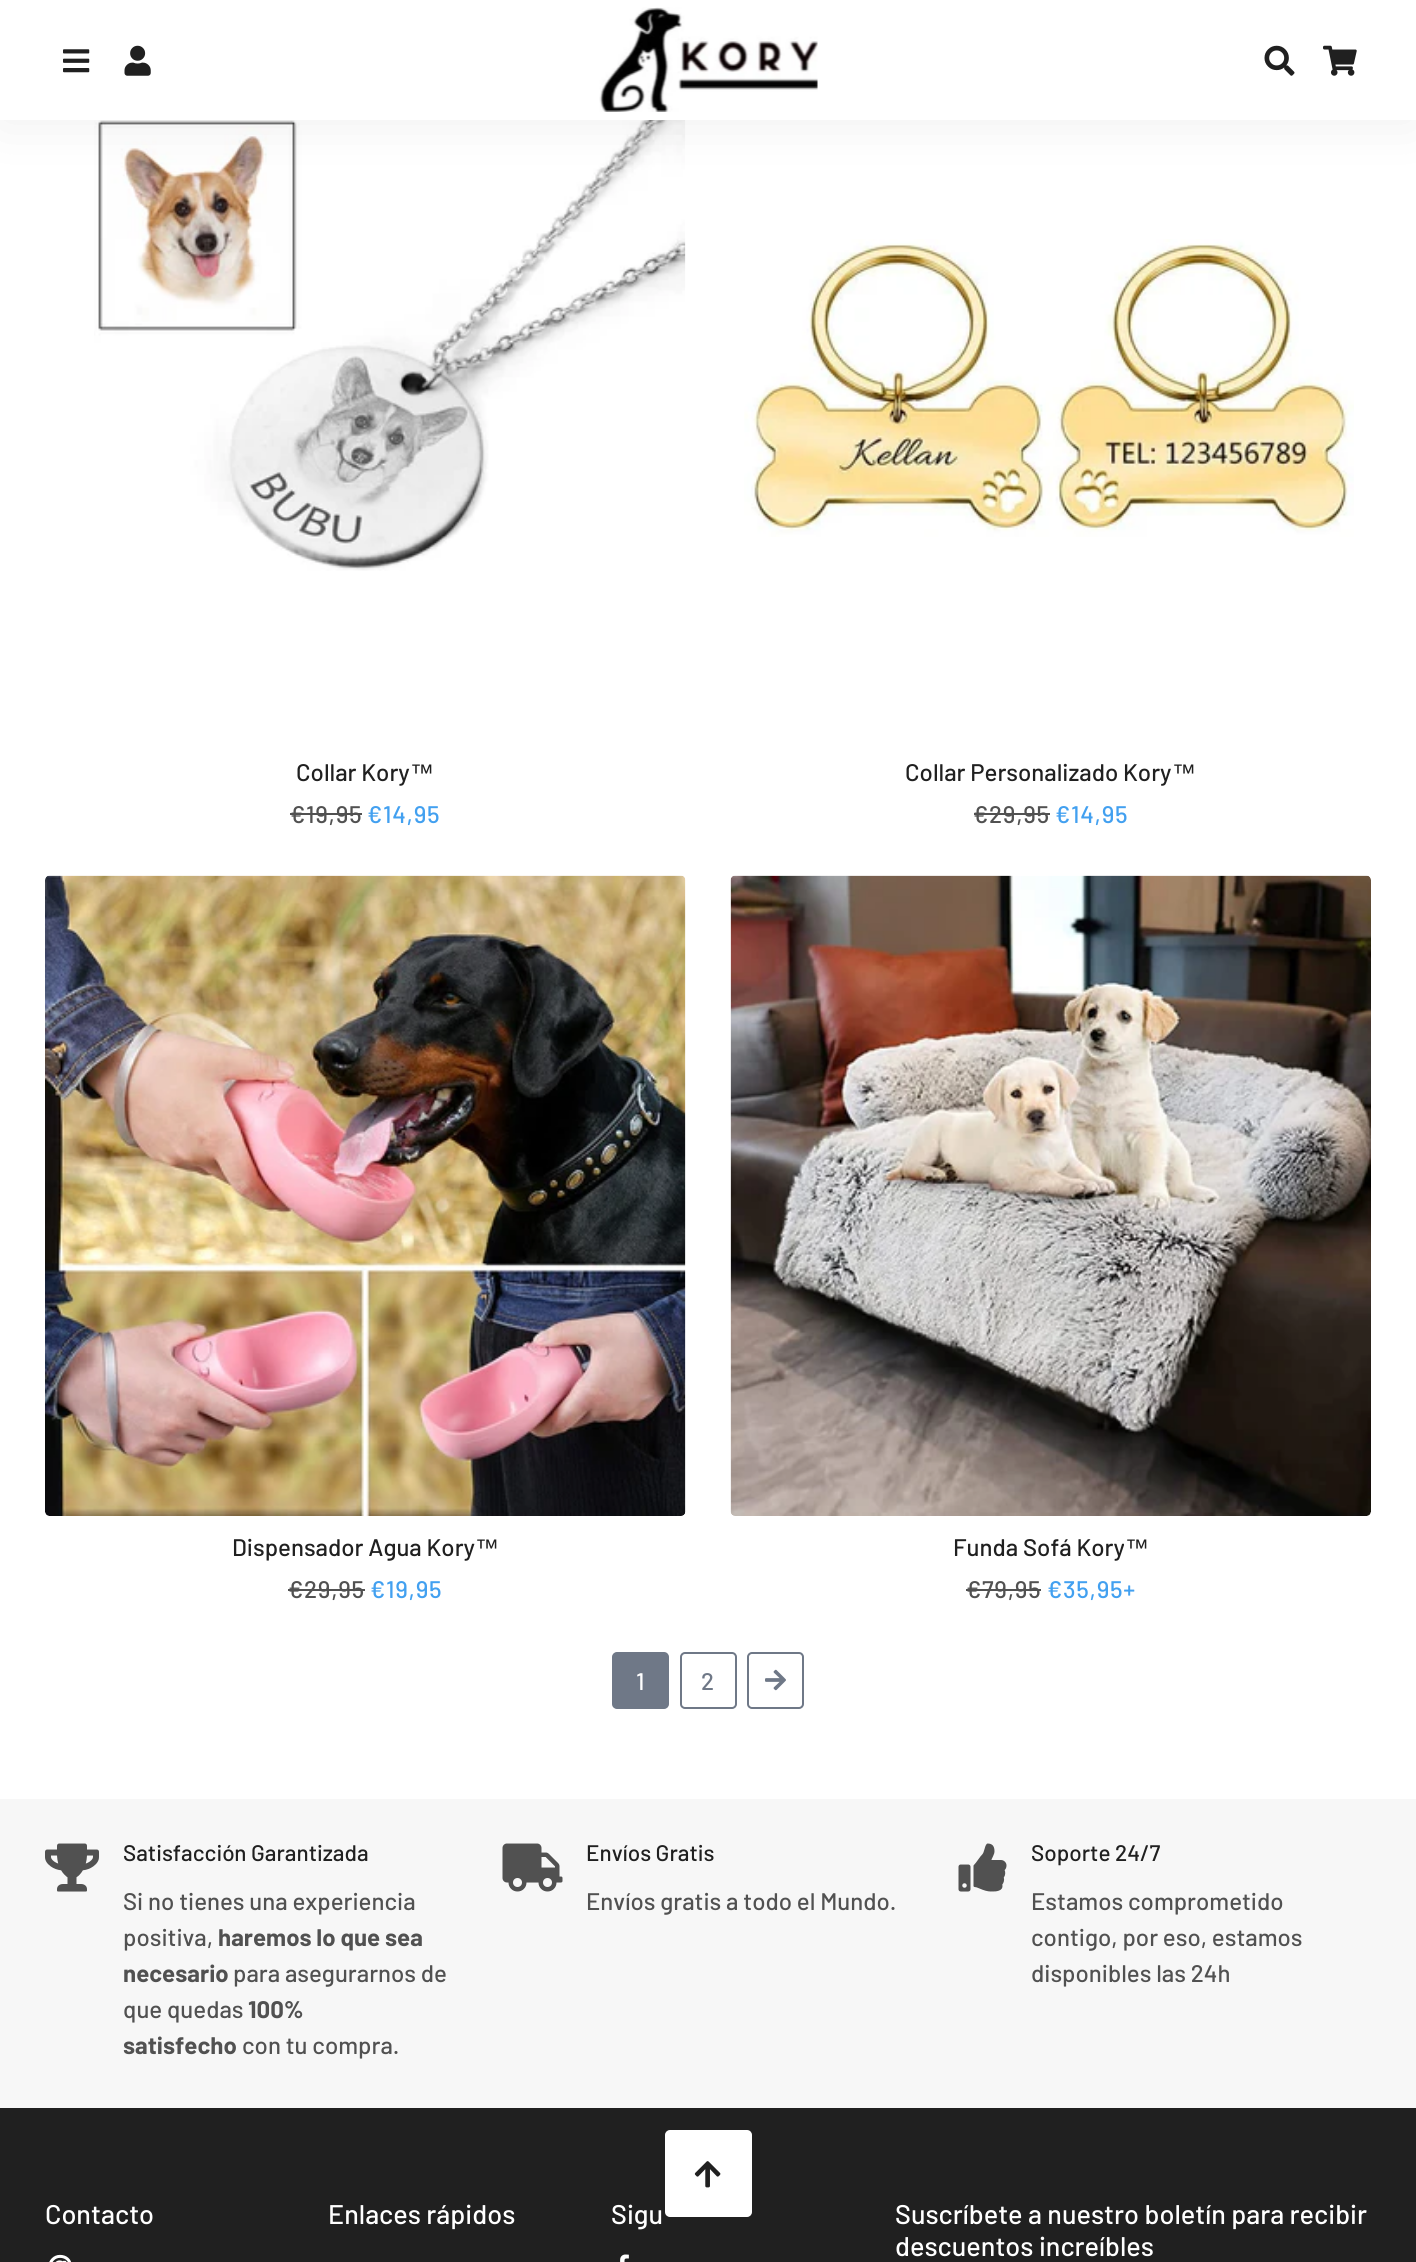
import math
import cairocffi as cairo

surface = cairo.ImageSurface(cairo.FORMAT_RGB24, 1416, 2262)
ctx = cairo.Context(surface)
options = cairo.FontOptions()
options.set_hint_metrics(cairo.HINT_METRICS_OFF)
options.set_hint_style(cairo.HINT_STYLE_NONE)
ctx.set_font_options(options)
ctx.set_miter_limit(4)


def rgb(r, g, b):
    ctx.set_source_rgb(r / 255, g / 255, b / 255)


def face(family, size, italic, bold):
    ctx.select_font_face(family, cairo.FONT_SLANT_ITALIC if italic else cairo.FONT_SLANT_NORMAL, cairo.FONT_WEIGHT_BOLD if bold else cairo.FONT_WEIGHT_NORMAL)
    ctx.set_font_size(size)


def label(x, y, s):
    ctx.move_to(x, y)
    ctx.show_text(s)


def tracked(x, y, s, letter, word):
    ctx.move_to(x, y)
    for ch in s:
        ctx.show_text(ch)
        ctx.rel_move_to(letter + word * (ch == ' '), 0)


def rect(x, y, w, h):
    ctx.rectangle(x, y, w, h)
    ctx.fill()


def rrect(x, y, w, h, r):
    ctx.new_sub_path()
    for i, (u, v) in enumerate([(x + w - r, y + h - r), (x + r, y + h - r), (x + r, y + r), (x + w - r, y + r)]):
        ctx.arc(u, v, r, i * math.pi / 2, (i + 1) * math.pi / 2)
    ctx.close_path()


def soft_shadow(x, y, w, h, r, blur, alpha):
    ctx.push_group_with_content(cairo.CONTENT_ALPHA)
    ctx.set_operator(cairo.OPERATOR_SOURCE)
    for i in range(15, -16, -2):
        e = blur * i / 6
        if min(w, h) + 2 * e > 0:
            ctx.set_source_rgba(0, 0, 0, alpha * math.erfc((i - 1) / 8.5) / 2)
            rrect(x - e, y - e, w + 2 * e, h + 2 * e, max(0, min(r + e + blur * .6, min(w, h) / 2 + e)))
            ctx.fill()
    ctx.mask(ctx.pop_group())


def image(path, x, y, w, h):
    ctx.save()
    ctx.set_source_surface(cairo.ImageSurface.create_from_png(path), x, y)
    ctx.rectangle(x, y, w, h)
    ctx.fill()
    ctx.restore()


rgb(255, 255, 255)
ctx.paint()
image('image5.png', 94, 120, 592, 451)
rgb(0, 0, 0)
soft_shadow(0, 0, 1416, 120, 0, 30, 0.07)
rgb(255, 255, 255)
rect(0, 0, 1416, 120)
image('image0.png', 63, 49, 27, 24)
image('image1.png', 124, 45, 27, 31)
image('image2.png', 599, 7, 219, 105)
image('image3.png', 1264, 45, 31, 31)
image('image4.png', 1323, 45, 34, 31)
face('Barlow Medium', 24, 0, 0)
rgb(32, 32, 32)
label(296, 781, 'Collar Kory')
face('Liberation Sans', 24, 0, 0)
label(410, 781, '™')
face('Barlow Medium', 24, 0, 0)
rgb(81, 81, 81)
tracked(290, 823, '€19,95', 0.75, 0)
rect(290, 813, 72, 2)
rgb(66, 160, 240)
tracked(367, 823, '€14,95', 0.75, 0)
image('image6.png', 744, 239, 610, 298)
rgb(32, 32, 32)
label(905, 781, 'Collar Personalizado Kory')
face('Liberation Sans', 24, 0, 0)
label(1172, 781, '™')
face('Barlow Medium', 24, 0, 0)
rgb(81, 81, 81)
tracked(973, 823, '€29,95', 0.75, 0)
rect(974, 813, 76, 2)
rgb(66, 160, 240)
tracked(1055, 823, '€14,95', 0.75, 0)
image('image7.png', 45, 875, 641, 641)
rgb(32, 32, 32)
label(232, 1556, 'Dispensador Agua Kory')
face('Liberation Sans', 24, 0, 0)
label(475, 1556, '™')
face('Barlow Medium', 24, 0, 0)
rgb(81, 81, 81)
tracked(288, 1598, '€29,95', 0.75, 0)
rect(288, 1589, 77, 2)
rgb(66, 160, 240)
tracked(370, 1598, '€19,95', 0.75, 0)
image('image8.png', 730, 875, 641, 641)
rgb(32, 32, 32)
label(953, 1556, 'Funda Sofá Kory')
face('Liberation Sans', 24, 0, 0)
label(1125, 1556, '™')
face('Barlow Medium', 24, 0, 0)
rgb(81, 81, 81)
tracked(966, 1598, '€79,95', 0.75, 0)
rect(966, 1589, 75, 2)
rgb(66, 160, 240)
tracked(1047, 1598, '€35,95+', 0.75, 0)
rgb(111, 120, 135)
rrect(613, 1653, 55, 55, 4)
ctx.fill_preserve()
ctx.stroke()
rgb(255, 255, 255)
label(636, 1690, '1')
rrect(681, 1653, 55, 55, 4)
rgb(111, 120, 135)
ctx.stroke()
label(701, 1690, '2')
rrect(748, 1653, 55, 55, 4)
ctx.stroke()
image('image9.png', 765, 1669, 21, 22)
rgb(247, 247, 247)
rect(0, 1799, 1416, 309)
image('image10.png', 45, 1843, 54, 49)
face('Barlow Medium', 22.5, 0, 0)
rgb(32, 32, 32)
label(123, 1861, 'Satisfacción Garantizada')
face('Barlow Medium', 24, 0, 0)
rgb(81, 81, 81)
label(123, 1910, 'Si no tienes una experiencia')
label(123, 1946, 'positiva,')
face('Barlow', 24, 0, 1)
label(218, 1946, 'haremos lo que sea')
label(123, 1982, 'necesario')
face('Barlow Medium', 24, 0, 0)
label(233, 1982, 'para asegurarnos de')
label(123, 2018, 'que quedas')
face('Barlow', 24, 0, 1)
label(248, 2018, '100%')
label(123, 2054, 'satisfecho')
face('Barlow Medium', 24, 0, 0)
label(242, 2054, 'con tu compra.')
image('image11.png', 502, 1843, 61, 49)
face('Barlow Medium', 22.5, 0, 0)
rgb(32, 32, 32)
label(586, 1861, 'Envíos Gratis')
face('Barlow Medium', 24, 0, 0)
rgb(81, 81, 81)
label(586, 1910, 'Envíos gratis a todo el Mundo.')
image('image12.png', 958, 1843, 49, 49)
face('Barlow Medium', 22.5, 0, 0)
rgb(32, 32, 32)
label(1031, 1861, 'Soporte 24/7')
face('Barlow Medium', 24, 0, 0)
rgb(81, 81, 81)
label(1031, 1910, 'Estamos comprometido')
label(1031, 1946, 'contigo, por eso, estamos')
label(1031, 1982, 'disponibles las 24h')
rgb(32, 32, 32)
rect(0, 2108, 1416, 154)
rgb(255, 255, 255)
rrect(666, 2131, 85, 85, 4)
ctx.fill_preserve()
ctx.stroke()
image('image13.png', 694, 2161, 27, 27)
face('Barlow Medium', 27, 0, 0)
label(45, 2224, 'Contacto')
image('image14.png', 49, 2254, 22, 8)
label(328, 2224, 'Enlaces rápidos')
label(611, 2224, 'Sigu')
image('image15.png', 620, 2254, 9, 8)
label(895, 2224, 'Suscríbete a nuestro boletín para recibir')
label(895, 2256, 'descuentos increíbles')
surface.write_to_png('render.png')
